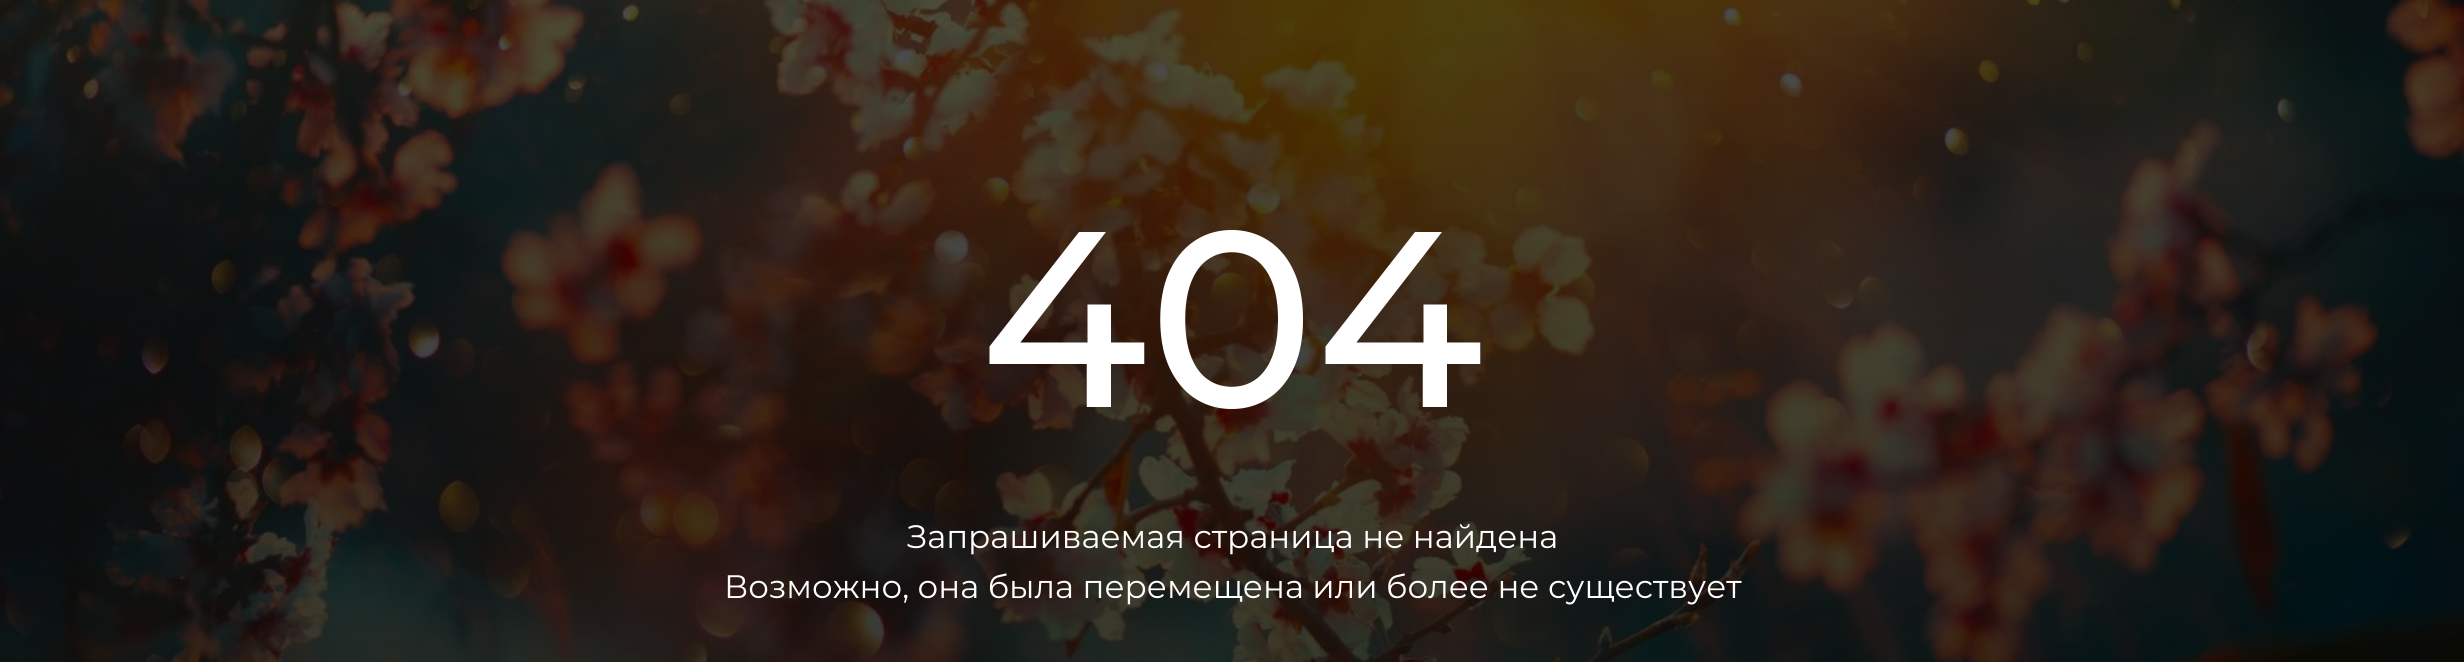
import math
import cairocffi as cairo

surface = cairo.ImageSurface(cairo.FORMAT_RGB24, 2464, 662)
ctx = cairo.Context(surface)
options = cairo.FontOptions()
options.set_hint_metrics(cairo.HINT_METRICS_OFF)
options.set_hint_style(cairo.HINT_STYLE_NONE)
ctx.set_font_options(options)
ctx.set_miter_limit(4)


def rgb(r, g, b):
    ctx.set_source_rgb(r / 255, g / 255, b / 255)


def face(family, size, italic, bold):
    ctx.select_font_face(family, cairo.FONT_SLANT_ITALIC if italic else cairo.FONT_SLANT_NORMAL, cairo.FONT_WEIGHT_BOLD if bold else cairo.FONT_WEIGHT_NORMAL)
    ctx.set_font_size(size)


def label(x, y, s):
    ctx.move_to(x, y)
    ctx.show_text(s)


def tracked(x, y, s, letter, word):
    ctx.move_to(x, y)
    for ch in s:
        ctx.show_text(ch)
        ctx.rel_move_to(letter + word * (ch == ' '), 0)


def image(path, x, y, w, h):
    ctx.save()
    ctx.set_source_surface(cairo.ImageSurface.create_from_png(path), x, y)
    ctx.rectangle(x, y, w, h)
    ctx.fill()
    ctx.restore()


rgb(255, 255, 255)
ctx.paint()
image('image0.png', 0, 0, 2464, 662)
face('Montserrat Medium', 250, 0, 0)
rgb(255, 255, 255)
tracked(980, 407, '404', 1, 0)
face('Montserrat', 32.5, 0, 0)
label(907, 548, 'Запрашиваемая страница не найдена')
label(724, 598, 'Возможно, она была перемещена или более не существует')
surface.write_to_png('render.png')
